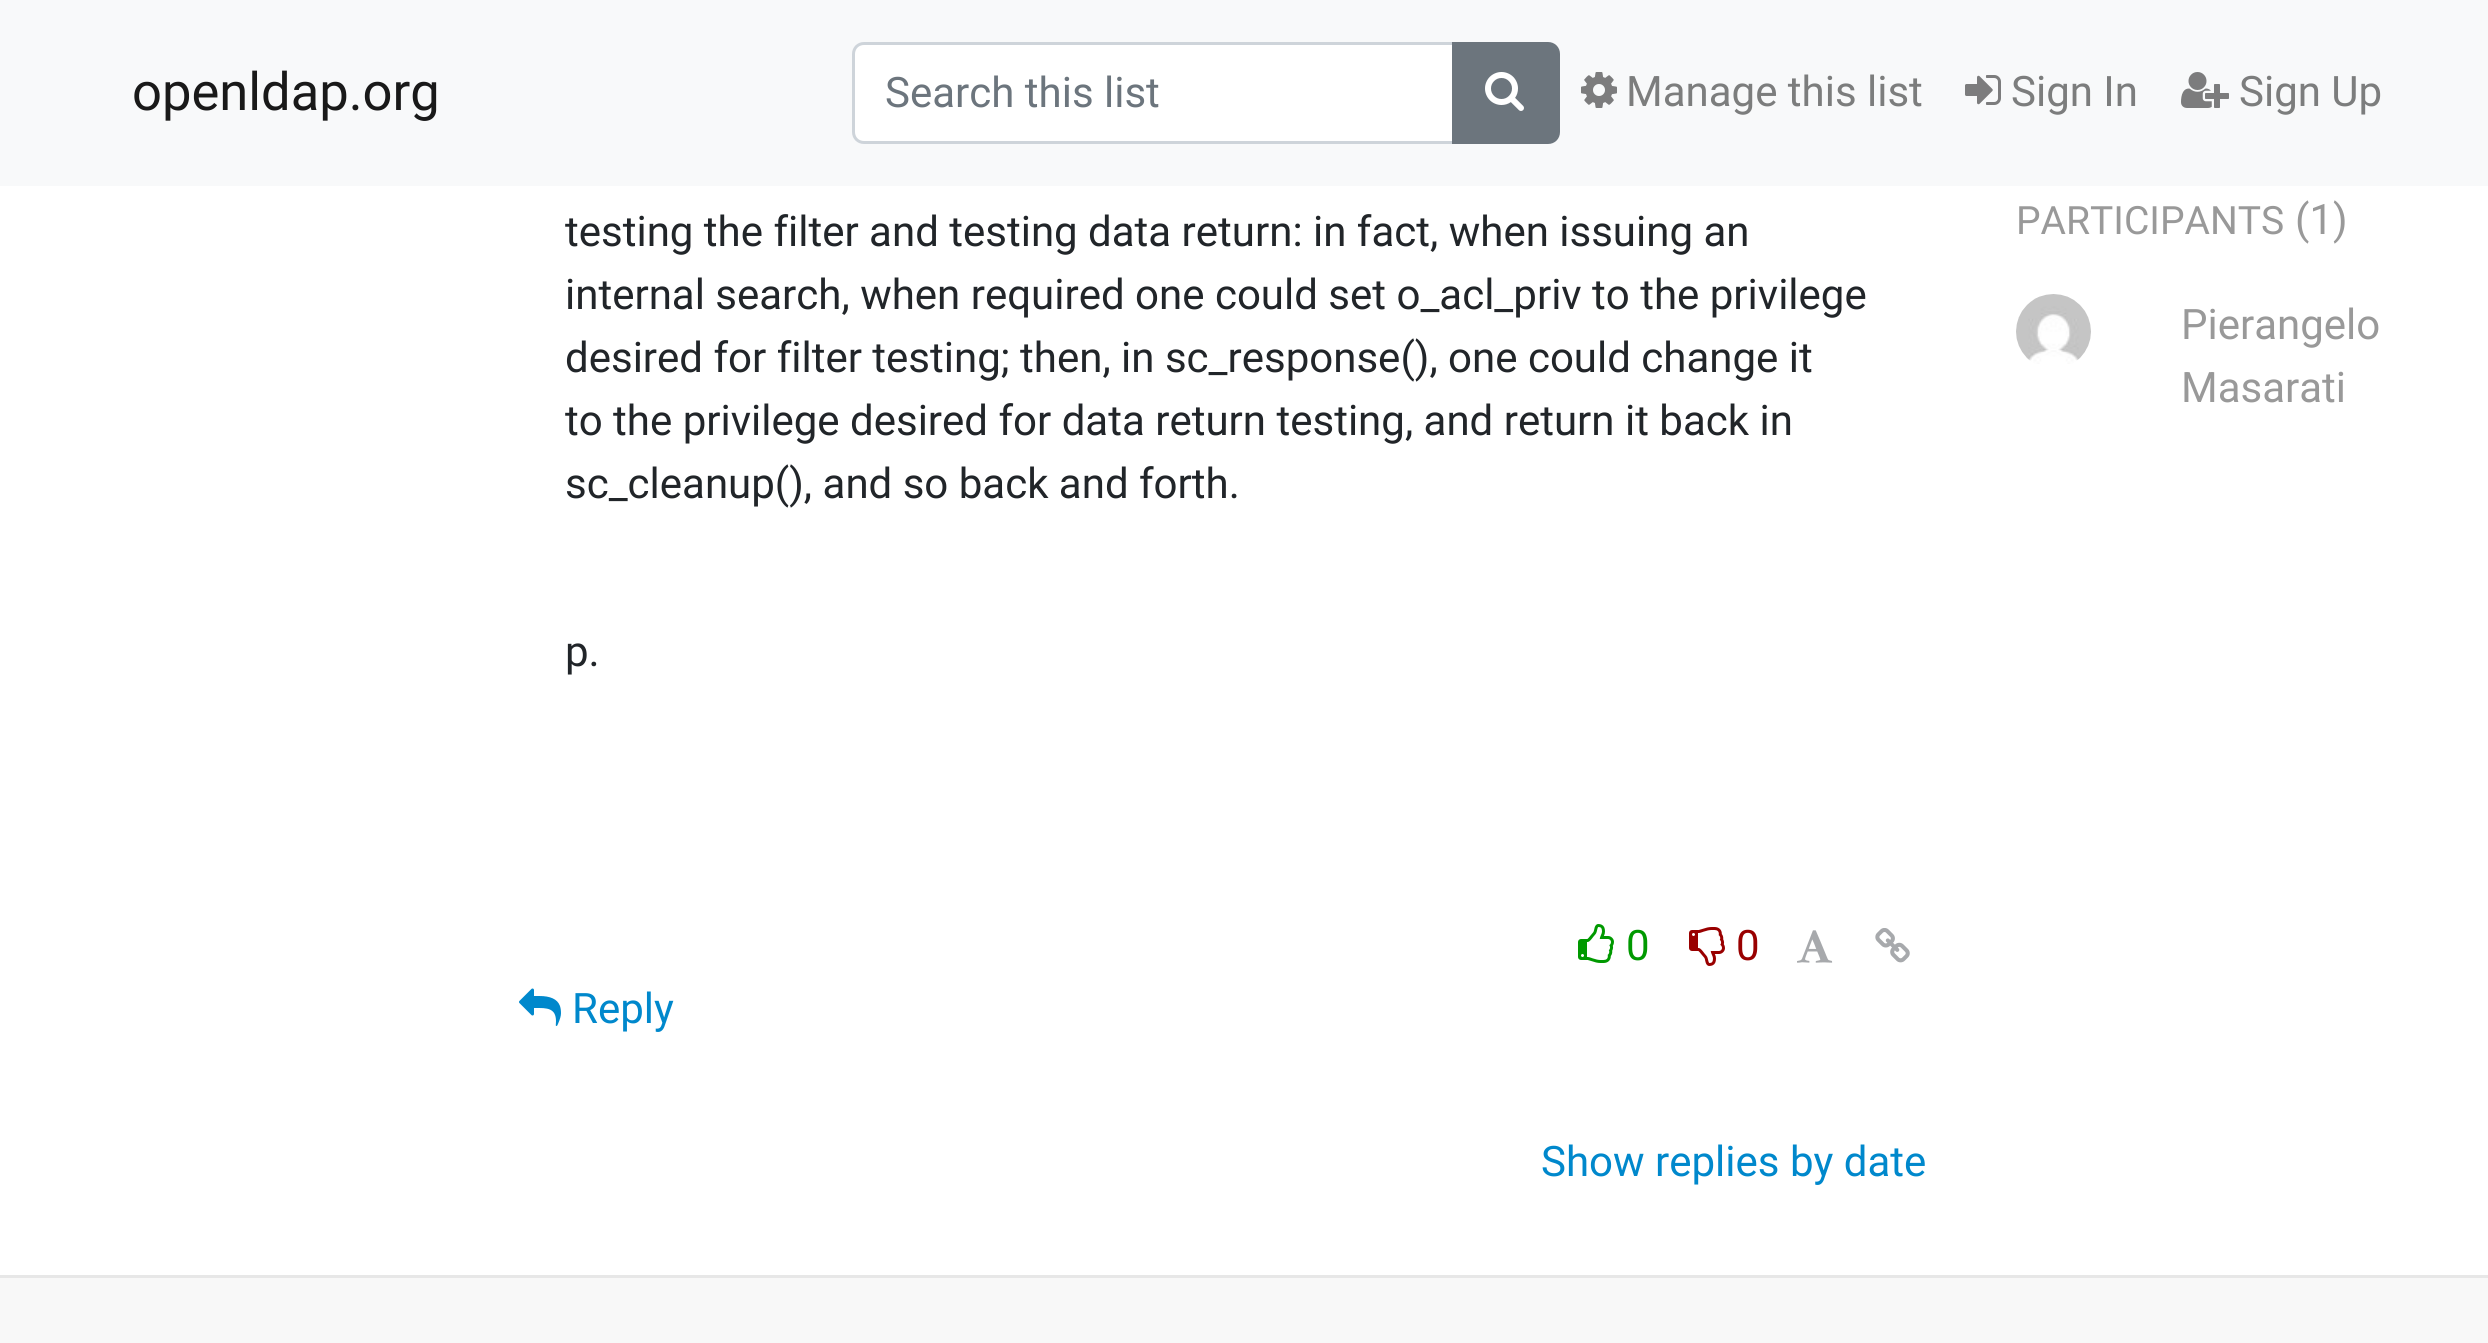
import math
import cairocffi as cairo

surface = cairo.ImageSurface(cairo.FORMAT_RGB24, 2488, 1343)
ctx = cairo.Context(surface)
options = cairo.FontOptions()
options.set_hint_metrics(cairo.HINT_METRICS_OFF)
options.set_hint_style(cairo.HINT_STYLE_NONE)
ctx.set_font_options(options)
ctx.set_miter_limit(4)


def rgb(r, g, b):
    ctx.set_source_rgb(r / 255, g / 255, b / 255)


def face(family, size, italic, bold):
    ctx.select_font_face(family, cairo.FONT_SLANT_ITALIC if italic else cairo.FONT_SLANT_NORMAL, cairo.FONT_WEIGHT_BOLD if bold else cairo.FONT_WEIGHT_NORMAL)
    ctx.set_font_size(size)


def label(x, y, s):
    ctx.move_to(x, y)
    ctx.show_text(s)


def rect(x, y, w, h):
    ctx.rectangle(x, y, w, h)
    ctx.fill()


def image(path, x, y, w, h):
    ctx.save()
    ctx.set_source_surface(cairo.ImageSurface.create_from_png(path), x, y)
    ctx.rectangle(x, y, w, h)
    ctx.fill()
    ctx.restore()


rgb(255, 255, 255)
ctx.paint()
rgb(248, 249, 250)
rect(0, 0, 2488, 186)
face('Roboto', 52.5, 0, 0)
rgb(25, 25, 25)
label(132, 110, 'openldap.org')
rgb(255, 255, 255)
ctx.new_path()
ctx.move_to(863, 45)
ctx.line_to(1452, 45)
ctx.line_to(1452, 141)
ctx.line_to(863, 141)
ctx.curve_to(858.5, 141, 855, 137.5, 855, 133)
ctx.line_to(855, 53)
ctx.curve_to(855, 48.5, 858.5, 45, 863, 45)
ctx.close_path()
ctx.fill()
ctx.new_path()
ctx.move_to(864, 43.5)
ctx.line_to(1453.5, 43.5)
ctx.line_to(1453.5, 142.5)
ctx.line_to(864, 142.5)
ctx.curve_to(858, 142.5, 853.5, 138, 853.5, 132)
ctx.line_to(853.5, 54)
ctx.curve_to(853.5, 48, 858, 43.5, 864, 43.5)
ctx.close_path()
rgb(206, 212, 218)
ctx.set_line_width(3)
ctx.stroke()
face('Roboto', 42, 0, 0)
rgb(108, 117, 125)
label(885, 107, 'Search this list')
ctx.new_path()
ctx.move_to(1453.5, 43.5)
ctx.line_to(1548, 43.5)
ctx.curve_to(1554, 43.5, 1558.5, 48, 1558.5, 54)
ctx.line_to(1558.5, 132)
ctx.curve_to(1558.5, 138, 1554, 142.5, 1548, 142.5)
ctx.line_to(1453.5, 142.5)
ctx.close_path()
ctx.fill_preserve()
ctx.stroke()
image('image0.png', 1485, 72, 39, 39)
image('image1.png', 1581, 72, 36, 36)
rgb(124, 125, 125)
label(1626, 106, 'Manage this list')
image('image2.png', 1965, 75, 36, 30)
label(2011, 106, 'Sign In')
image('image3.png', 2181, 72, 48, 36)
label(2239, 106, 'Sign Up')
rgb(33, 37, 41)
label(565, 246, 'testing the filter and testing data return: in fact, when issuing an')
label(565, 309, 'internal search, when required one could set o_acl_priv to the privilege')
label(565, 372, 'desired for filter testing; then, in sc_response(), one could change it')
label(565, 435, 'to the privilege desired for data return testing, and return it back in')
label(565, 498, 'sc_cleanup(), and so back and forth.')
label(565, 666, 'p.')
image('image4.png', 1578, 924, 36, 39)
rgb(0, 153, 0)
label(1626, 960, '0')
image('image5.png', 1689, 927, 36, 39)
rgb(153, 0, 0)
label(1736, 960, '0')
image('image6.png', 1797, 930, 36, 33)
image('image7.png', 1875, 928, 35, 35)
image('image8.png', 519, 988, 42, 38)
rgb(0, 136, 204)
label(572, 1023, 'Reply')
label(1541, 1176, 'Show replies by date')
face('Roboto', 39, 0, 0)
rgb(153, 153, 153)
label(2016, 234, 'PARTICIPANTS')
face('Roboto', 42, 0, 0)
label(2295, 234, '(1)')
image('image9.png', 2016, 294, 75, 70)
label(2181, 339, 'Pierangelo')
label(2181, 402, 'Masarati')
rgb(248, 248, 248)
rect(0, 1278, 2488, 65)
rgb(231, 231, 231)
rect(0, 1275, 2488, 3)
surface.write_to_png('render.png')
